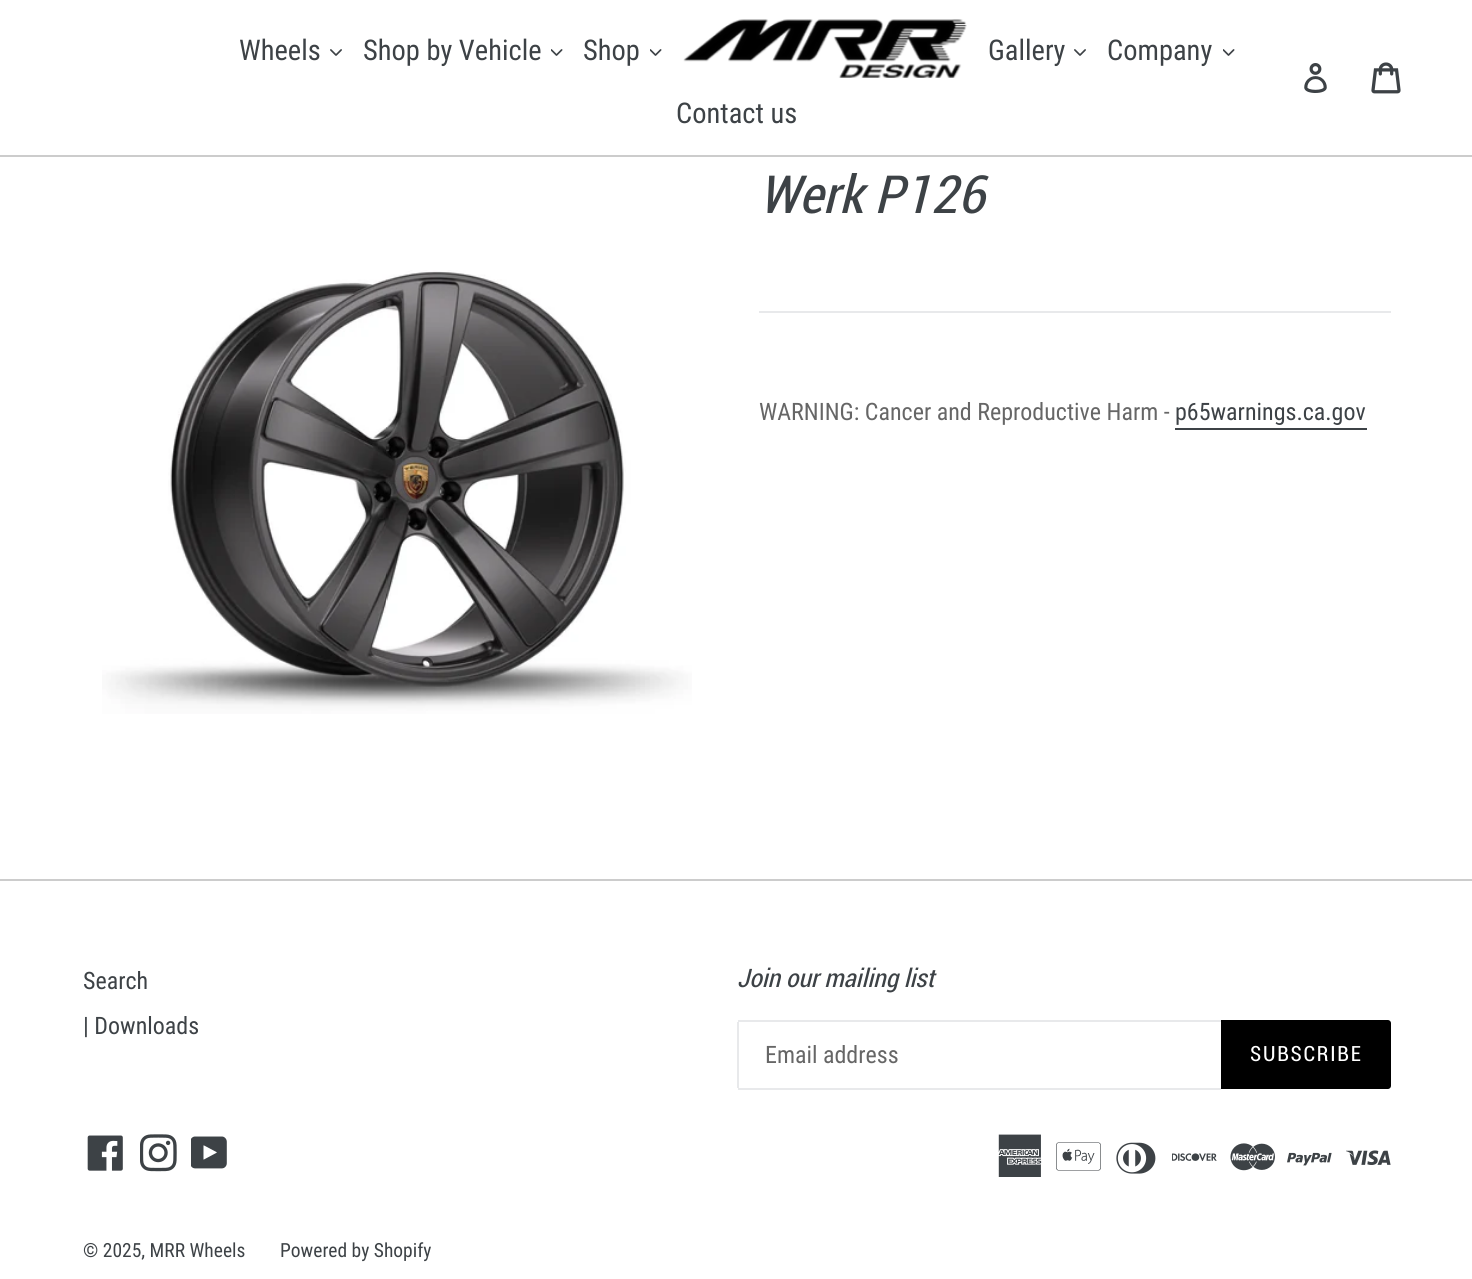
import math
import cairocffi as cairo

surface = cairo.ImageSurface(cairo.FORMAT_RGB24, 1472, 1279)
ctx = cairo.Context(surface)
options = cairo.FontOptions()
options.set_hint_metrics(cairo.HINT_METRICS_OFF)
options.set_hint_style(cairo.HINT_STYLE_NONE)
ctx.set_font_options(options)
ctx.set_miter_limit(4)


def rgb(r, g, b):
    ctx.set_source_rgb(r / 255, g / 255, b / 255)


def face(family, size, italic, bold):
    ctx.select_font_face(family, cairo.FONT_SLANT_ITALIC if italic else cairo.FONT_SLANT_NORMAL, cairo.FONT_WEIGHT_BOLD if bold else cairo.FONT_WEIGHT_NORMAL)
    ctx.set_font_size(size)


def label(x, y, s):
    ctx.move_to(x, y)
    ctx.show_text(s)


def tracked(x, y, s, letter, word):
    ctx.move_to(x, y)
    for ch in s:
        ctx.show_text(ch)
        ctx.rel_move_to(letter + word * (ch == ' '), 0)


def rect(x, y, w, h):
    ctx.rectangle(x, y, w, h)
    ctx.fill()


def image(path, x, y, w, h):
    ctx.save()
    ctx.set_source_surface(cairo.ImageSurface.create_from_png(path), x, y)
    ctx.rectangle(x, y, w, h)
    ctx.fill()
    ctx.restore()


rgb(255, 255, 255)
ctx.paint()
rgb(204, 204, 204)
rect(0, 155, 1472, 2)
face('Roboto Condensed', 28.5, 0, 0)
rgb(61, 66, 70)
label(239, 60, 'Wheels')
image('image0.png', 330, 49, 12, 7)
label(363, 60, 'Shop by Vehicle')
image('image1.png', 551, 49, 12, 7)
label(583, 60, 'Shop')
image('image1.png', 650, 49, 12, 7)
image('image2.png', 683, 19, 284, 59)
label(988, 60, 'Gallery')
image('image0.png', 1074, 49, 12, 7)
label(1107, 60, 'Company')
image('image1.png', 1223, 49, 12, 7)
label(676, 123, 'Contact us')
image('image3.png', 1304, 63, 23, 30)
image('image4.png', 1371, 62, 30, 32)
image('image5.png', 102, 270, 590, 444)
face('Roboto', 52.5, 1, 0)
label(759, 213, 'Werk P126')
rgb(232, 233, 235)
rect(759, 311, 632, 2)
face('Roboto Condensed', 24, 0, 0)
rgb(102, 102, 102)
label(759, 420, 'WARNING: Cancer and Reproductive Harm -')
rgb(61, 66, 70)
label(1175, 420, 'p65warnings.ca.gov')
rect(1175, 428, 192, 2)
rgb(204, 204, 204)
rect(0, 879, 1472, 2)
rgb(61, 66, 70)
label(83, 989, 'Search')
label(83, 1034, '| Downloads')
face('Roboto', 25.5, 1, 0)
label(737, 987, 'Join our mailing list')
rgb(232, 233, 235)
rect(738, 1020, 483, 2)
rect(738, 1088, 483, 2)
rect(737, 1022, 2, 66)
face('Roboto Condensed', 24, 0, 0)
rgb(102, 102, 102)
label(765, 1063, 'Email address')
rgb(0, 0, 0)
ctx.new_path()
ctx.move_to(1221, 1020)
ctx.line_to(1388, 1020)
ctx.curve_to(1389.5, 1020, 1391, 1021.5, 1391, 1023)
ctx.line_to(1391, 1086)
ctx.curve_to(1391, 1087.5, 1389.5, 1089, 1388, 1089)
ctx.line_to(1221, 1089)
ctx.close_path()
ctx.fill()
face('Roboto', 21, 0, 0)
rgb(255, 255, 255)
tracked(1250, 1061, 'SUBSCRIBE', 1.75, 0)
image('image6.png', 87, 1135, 36, 36)
image('image7.png', 140, 1134, 37, 38)
image('image8.png', 191, 1136, 36, 33)
image('image9.png', 998, 1134, 44, 43)
image('image10.png', 1056, 1142, 45, 29)
image('image11.png', 1116, 1142, 40, 32)
image('image12.png', 1172, 1153, 45, 8)
image('image13.png', 1230, 1143, 45, 28)
image('image14.png', 1287, 1152, 45, 14)
image('image15.png', 1346, 1150, 45, 15)
face('Roboto Condensed', 19.5, 0, 0)
rgb(61, 66, 70)
label(83, 1257, '© 2025, MRR Wheels')
label(280, 1257, 'Powered by Shopify')
surface.write_to_png('render.png')
